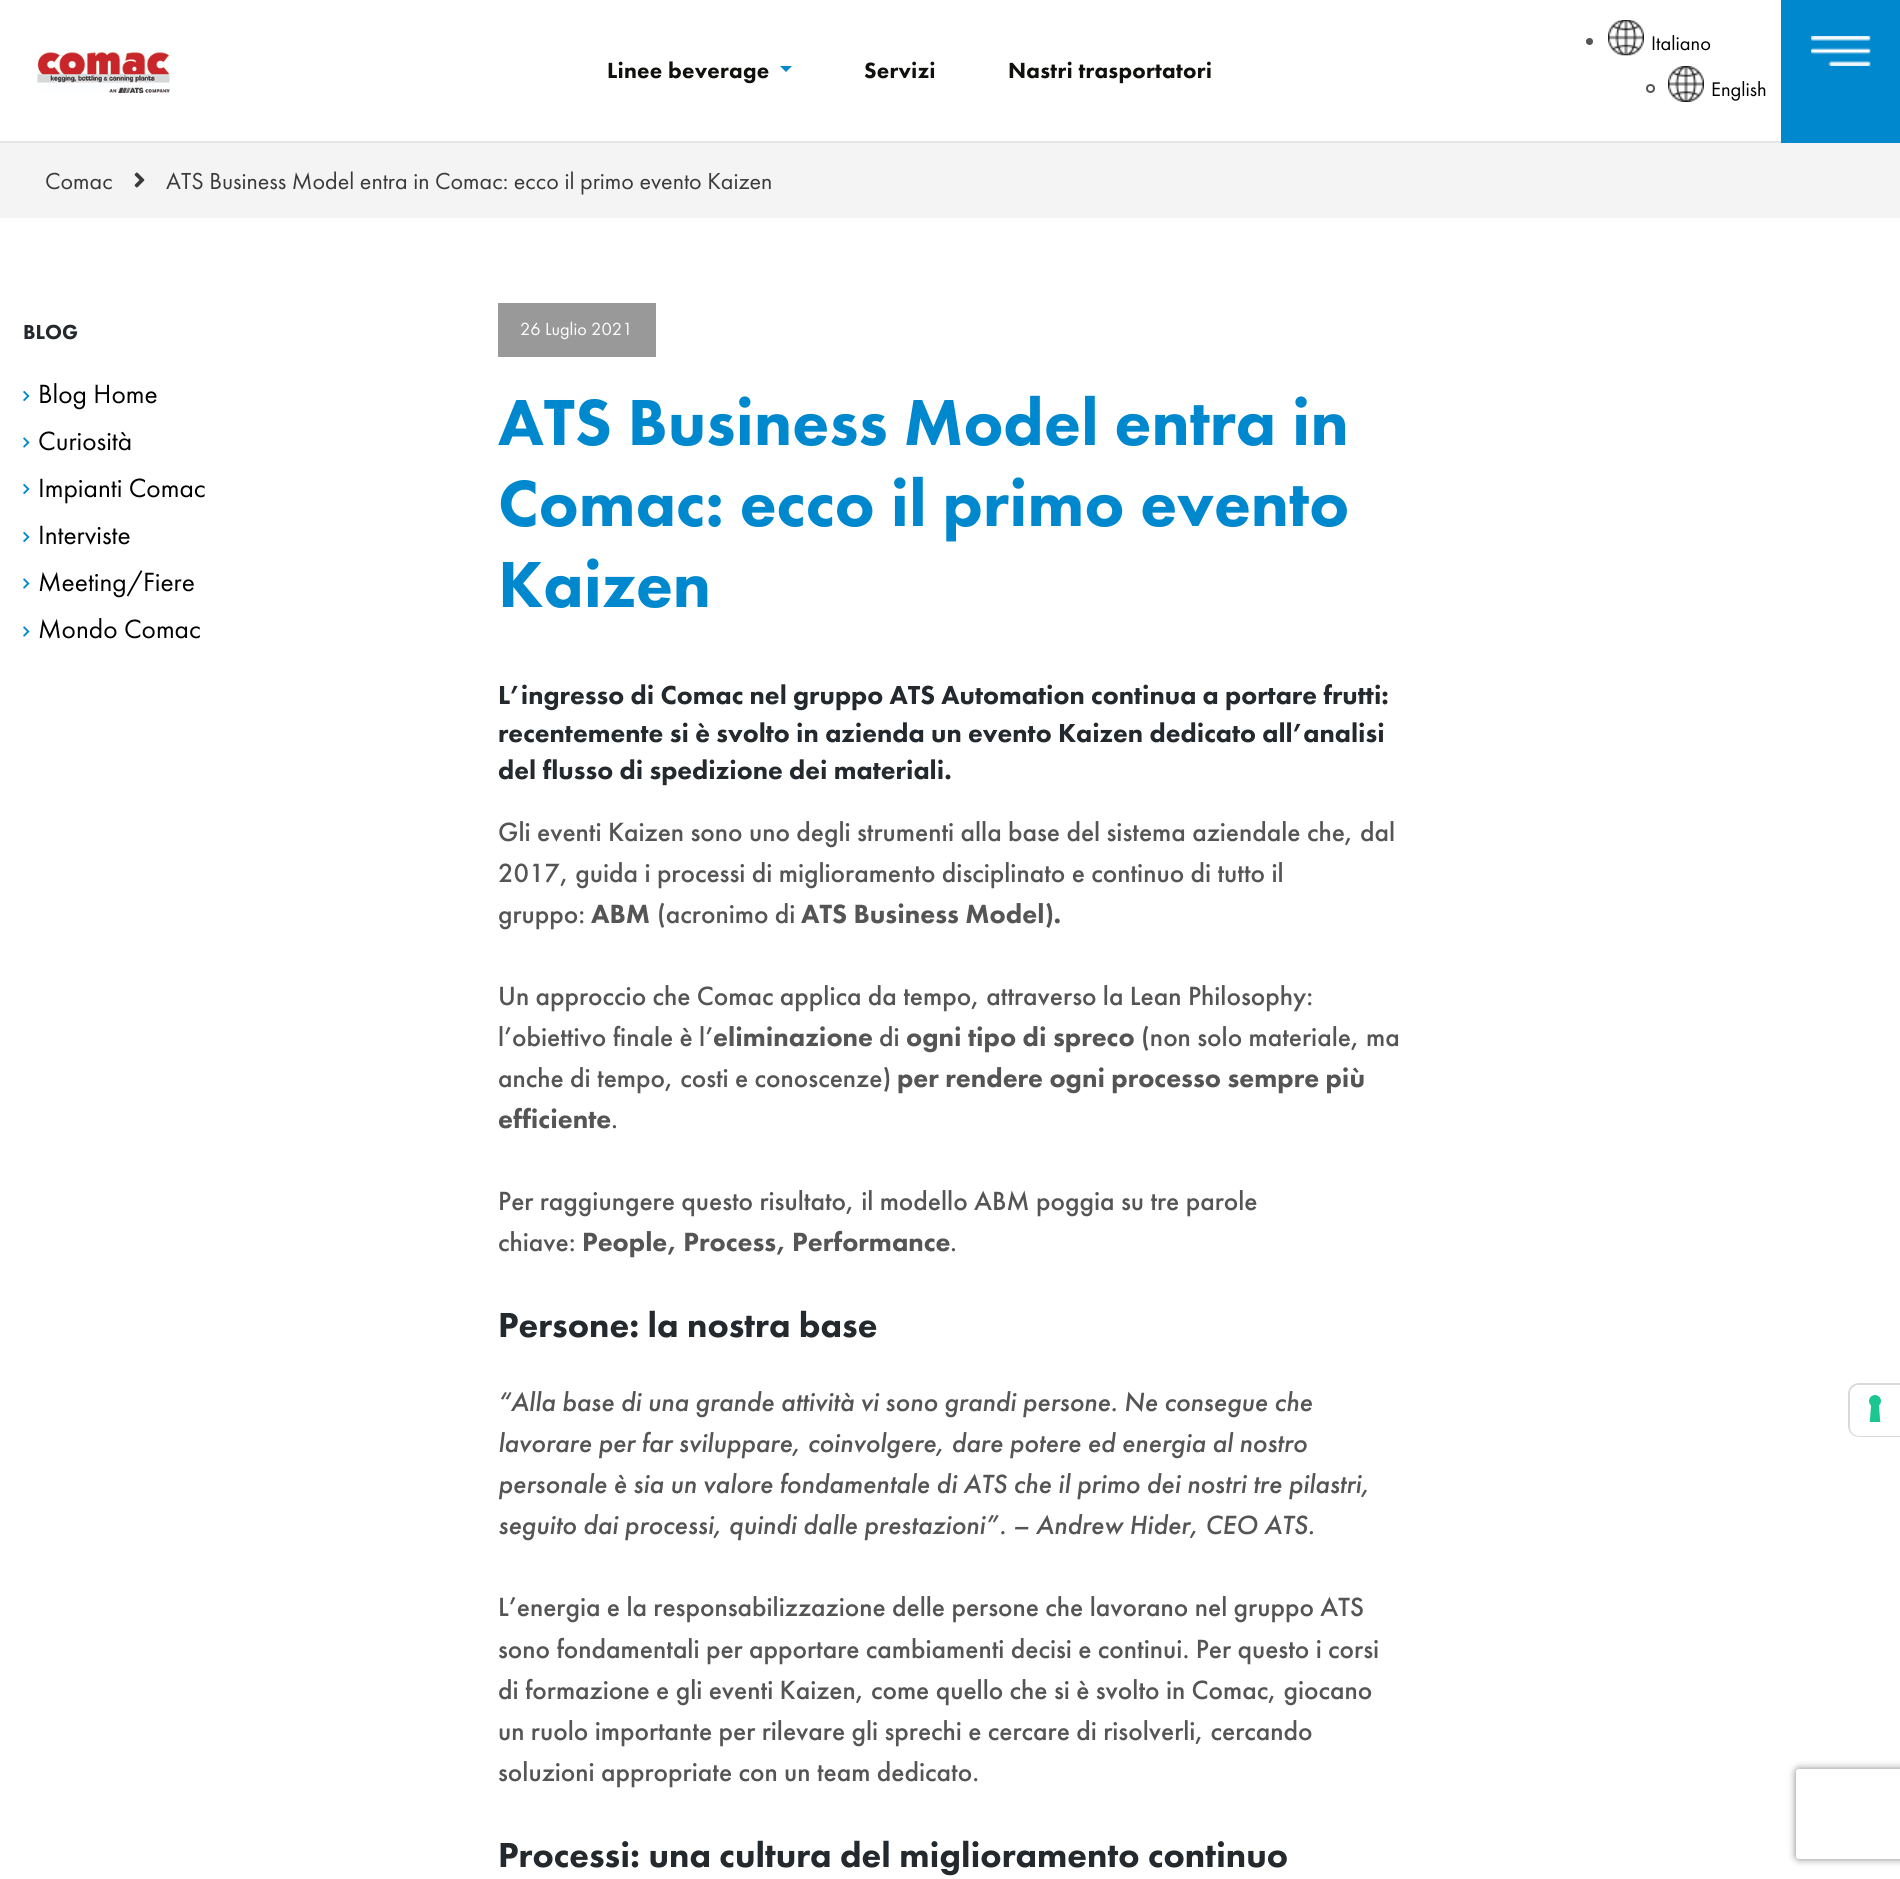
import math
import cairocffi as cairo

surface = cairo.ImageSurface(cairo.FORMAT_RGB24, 1900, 1879)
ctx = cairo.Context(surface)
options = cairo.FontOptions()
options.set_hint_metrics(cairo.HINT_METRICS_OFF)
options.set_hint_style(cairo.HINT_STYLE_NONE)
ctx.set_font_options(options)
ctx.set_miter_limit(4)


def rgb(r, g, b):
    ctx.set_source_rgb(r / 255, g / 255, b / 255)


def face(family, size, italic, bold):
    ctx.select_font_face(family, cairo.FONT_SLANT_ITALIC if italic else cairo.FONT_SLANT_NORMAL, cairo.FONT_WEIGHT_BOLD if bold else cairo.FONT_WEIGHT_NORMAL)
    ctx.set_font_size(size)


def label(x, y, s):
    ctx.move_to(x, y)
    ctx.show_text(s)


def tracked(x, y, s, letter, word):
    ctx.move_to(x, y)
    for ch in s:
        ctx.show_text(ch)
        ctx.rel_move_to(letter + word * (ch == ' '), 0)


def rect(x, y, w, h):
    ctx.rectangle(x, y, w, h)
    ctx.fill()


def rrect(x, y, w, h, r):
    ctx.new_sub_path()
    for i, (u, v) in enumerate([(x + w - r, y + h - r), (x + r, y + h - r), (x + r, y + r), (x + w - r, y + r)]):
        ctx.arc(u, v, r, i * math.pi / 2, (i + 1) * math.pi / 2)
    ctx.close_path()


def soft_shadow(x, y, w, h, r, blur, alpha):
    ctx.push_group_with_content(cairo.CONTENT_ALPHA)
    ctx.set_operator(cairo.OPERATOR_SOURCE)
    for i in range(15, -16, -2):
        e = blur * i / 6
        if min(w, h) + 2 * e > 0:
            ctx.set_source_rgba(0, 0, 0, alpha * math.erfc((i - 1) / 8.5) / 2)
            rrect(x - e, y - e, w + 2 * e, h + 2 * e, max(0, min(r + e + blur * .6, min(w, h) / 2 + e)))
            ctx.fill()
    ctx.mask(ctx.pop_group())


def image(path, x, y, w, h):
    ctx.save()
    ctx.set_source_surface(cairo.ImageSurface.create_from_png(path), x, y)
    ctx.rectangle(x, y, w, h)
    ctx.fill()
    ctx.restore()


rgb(255, 255, 255)
ctx.paint()
rgb(230, 230, 230)
rect(0, 141, 1781, 2)
image('image0.png', 37, 52, 133, 41)
face('Futura PT Black', 22.75, 0, 0)
rgb(16, 17, 12)
tracked(607, 78, 'Linee beverage', 0.25, 0)
rgb(0, 136, 206)
ctx.new_path()
ctx.move_to(780, 66)
ctx.line_to(792, 66)
ctx.line_to(786, 72)
ctx.close_path()
ctx.fill()
rgb(16, 17, 12)
tracked(864, 78, 'Servizi', 0.25, 0)
tracked(1008, 78, 'Nastri trasportatori', 0.25, 0)
rgb(85, 85, 85)
ctx.new_path()
ctx.arc(1589.5, 41.5, 3.5, 0, 2 * math.pi)
ctx.fill()
image('image1.png', 1608, 20, 36, 36)
face('Futura PT', 20.5, 0, 0)
rgb(0, 0, 0)
label(1651, 50, 'Italiano')
ctx.new_path()
ctx.arc(1650.5, 88.5, 3.5, 0, 2 * math.pi)
rgb(85, 85, 85)
ctx.stroke()
image('image2.png', 1668, 66, 36, 36)
rgb(0, 0, 0)
label(1711, 96, 'English')
rgb(0, 136, 206)
rect(1781, 0, 119, 143)
image('image3.png', 1811, 36, 60, 30)
rgb(244, 244, 244)
rect(0, 143, 1900, 75)
face('Futura PT', 24, 0, 0)
rgb(59, 57, 57)
label(45, 189, 'Comac')
image('image4.png', 134, 172, 11, 16)
label(166, 189, 'ATS Business Model entra in Comac: ecco il primo evento Kaizen')
face('Futura PT Black', 21, 0, 0)
rgb(36, 41, 46)
label(23, 339, 'BLOG')
image('image5.png', 23, 390, 7, 12)
face('Futura PT', 27.35, 0, 0)
rgb(0, 0, 0)
label(38, 403, 'Blog Home')
image('image6.png', 23, 437, 7, 11)
label(38, 450, 'Curiosità')
image('image5.png', 23, 483, 7, 12)
label(38, 497, 'Impianti Comac')
image('image5.png', 23, 531, 7, 12)
label(38, 544, 'Interviste')
image('image6.png', 23, 578, 7, 11)
label(38, 591, 'Meeting/Fiere')
image('image6.png', 23, 626, 7, 11)
label(38, 638, 'Mondo Comac')
rgb(153, 153, 153)
rect(498, 303, 158, 54)
face('Futura PT', 18.25, 0, 0)
rgb(255, 255, 255)
label(520, 335, '26 Luglio 2021')
face('Futura PT Black', 67.5, 0, 0)
rgb(0, 136, 206)
label(498, 445, 'ATS Business Model entra in')
label(498, 526, 'Comac: ecco il primo evento')
label(498, 607, 'Kaizen')
face('Futura PT Black', 27, 0, 0)
rgb(36, 41, 46)
label(498, 704, 'L’ingresso di Comac nel gruppo ATS Automation continua a portare frutti:')
label(498, 742, 'recentemente si è svolto in azienda un evento Kaizen dedicato all’analisi')
label(498, 779, 'del flusso di spedizione dei materiali.')
face('Futura PT Medium', 27.35, 0, 0)
rgb(85, 85, 85)
label(498, 841, 'Gli eventi Kaizen sono uno degli strumenti alla base del sistema aziendale che, dal')
label(498, 882, '2017, guida i processi di miglioramento disciplinato e continuo di tutto il')
label(498, 923, 'gruppo:')
face('Futura PT Black', 27.35, 0, 0)
label(591, 923, 'ABM')
face('Futura PT Medium', 27.35, 0, 0)
label(657, 923, '(acronimo di')
face('Futura PT Black', 27.35, 0, 0)
label(801, 923, 'ATS Business Model).')
face('Futura PT Medium', 27.35, 0, 0)
label(498, 1005, 'Un approccio che Comac applica da tempo, attraverso la Lean Philosophy:')
label(498, 1046, 'l’obiettivo finale è l’')
face('Futura PT Black', 27.35, 0, 0)
label(713, 1046, 'eliminazione')
face('Futura PT Medium', 27.35, 0, 0)
label(879, 1046, 'di')
face('Futura PT Black', 27.35, 0, 0)
label(906, 1046, 'ogni tipo di spreco')
face('Futura PT Medium', 27.35, 0, 0)
label(1141, 1046, '(non solo materiale, ma')
label(498, 1087, 'anche di tempo, costi e conoscenze)')
face('Futura PT Black', 27.35, 0, 0)
label(897, 1087, 'per rendere ogni processo sempre più')
label(498, 1128, 'efficiente')
face('Futura PT Medium', 27.35, 0, 0)
label(611, 1128, '.')
label(498, 1210, 'Per raggiungere questo risultato, il modello ABM poggia su tre parole')
label(498, 1251, 'chiave:')
face('Futura PT Black', 27.35, 0, 0)
label(582, 1251, 'People, Process, Performance')
face('Futura PT Medium', 27.35, 0, 0)
label(950, 1251, '.')
face('Futura PT Black', 36, 0, 0)
rgb(36, 41, 46)
label(498, 1337, 'Persone: la nostra base')
face('Futura PT Medium', 27.35, 1, 0)
rgb(85, 85, 85)
label(498, 1411, '“Alla base di una grande attività vi sono grandi persone. Ne consegue che')
label(498, 1452, 'lavorare per far sviluppare, coinvolgere, dare potere ed energia al nostro')
label(498, 1493, 'personale è sia un valore fondamentale di ATS che il primo dei nostri tre pilastri,')
label(498, 1534, 'seguito dai processi, quindi dalle prestazioni”. – Andrew Hider, CEO ATS.')
face('Futura PT Medium', 27.35, 0, 0)
label(498, 1616, 'L’energia e la responsabilizzazione delle persone che lavorano nel gruppo ATS')
label(498, 1658, 'sono fondamentali per apportare cambiamenti decisi e continui. Per questo i corsi')
label(498, 1699, 'di formazione e gli eventi Kaizen, come quello che si è svolto in Comac, giocano')
label(498, 1740, 'un ruolo importante per rilevare gli sprechi e cercare di risolverli, cercando')
label(498, 1781, 'soluzioni appropriate con un team dedicato.')
face('Futura PT Black', 36, 0, 0)
rgb(36, 41, 46)
label(498, 1867, 'Processi: una cultura del miglioramento continuo')
ctx.new_path()
ctx.move_to(1859, 1384)
ctx.line_to(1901, 1384)
ctx.line_to(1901, 1436)
ctx.line_to(1859, 1436)
ctx.curve_to(1853.5, 1436, 1849, 1431.5, 1849, 1426)
ctx.line_to(1849, 1394)
ctx.curve_to(1849, 1388.5, 1853.5, 1384, 1859, 1384)
ctx.close_path()
rgb(217, 217, 217)
ctx.stroke()
rgb(255, 255, 255)
ctx.new_path()
ctx.move_to(1859, 1385)
ctx.line_to(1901, 1385)
ctx.line_to(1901, 1436)
ctx.line_to(1859, 1436)
ctx.curve_to(1854, 1436, 1850, 1432, 1850, 1427)
ctx.line_to(1850, 1394)
ctx.curve_to(1850, 1389, 1854, 1385, 1859, 1385)
ctx.close_path()
ctx.fill()
image('image7.png', 1869, 1395, 12, 27)
ctx.save()
ctx.set_fill_rule(cairo.FILL_RULE_EVEN_ODD)
ctx.new_path()
ctx.move_to(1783, 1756)
ctx.line_to(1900, 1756)
ctx.line_to(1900, 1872)
ctx.line_to(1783, 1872)
ctx.close_path()
ctx.move_to(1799, 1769)
ctx.line_to(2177, 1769)
ctx.curve_to(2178.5, 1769, 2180, 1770.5, 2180, 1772)
ctx.line_to(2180, 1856)
ctx.curve_to(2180, 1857.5, 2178.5, 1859, 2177, 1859)
ctx.line_to(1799, 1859)
ctx.curve_to(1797.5, 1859, 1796, 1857.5, 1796, 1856)
ctx.line_to(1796, 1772)
ctx.curve_to(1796, 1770.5, 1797.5, 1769, 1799, 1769)
ctx.close_path()
ctx.clip()
rgb(128, 128, 128)
soft_shadow(1796, 1769, 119, 90, 3, 4, 1)
ctx.restore()
surface.write_to_png('render.png')
